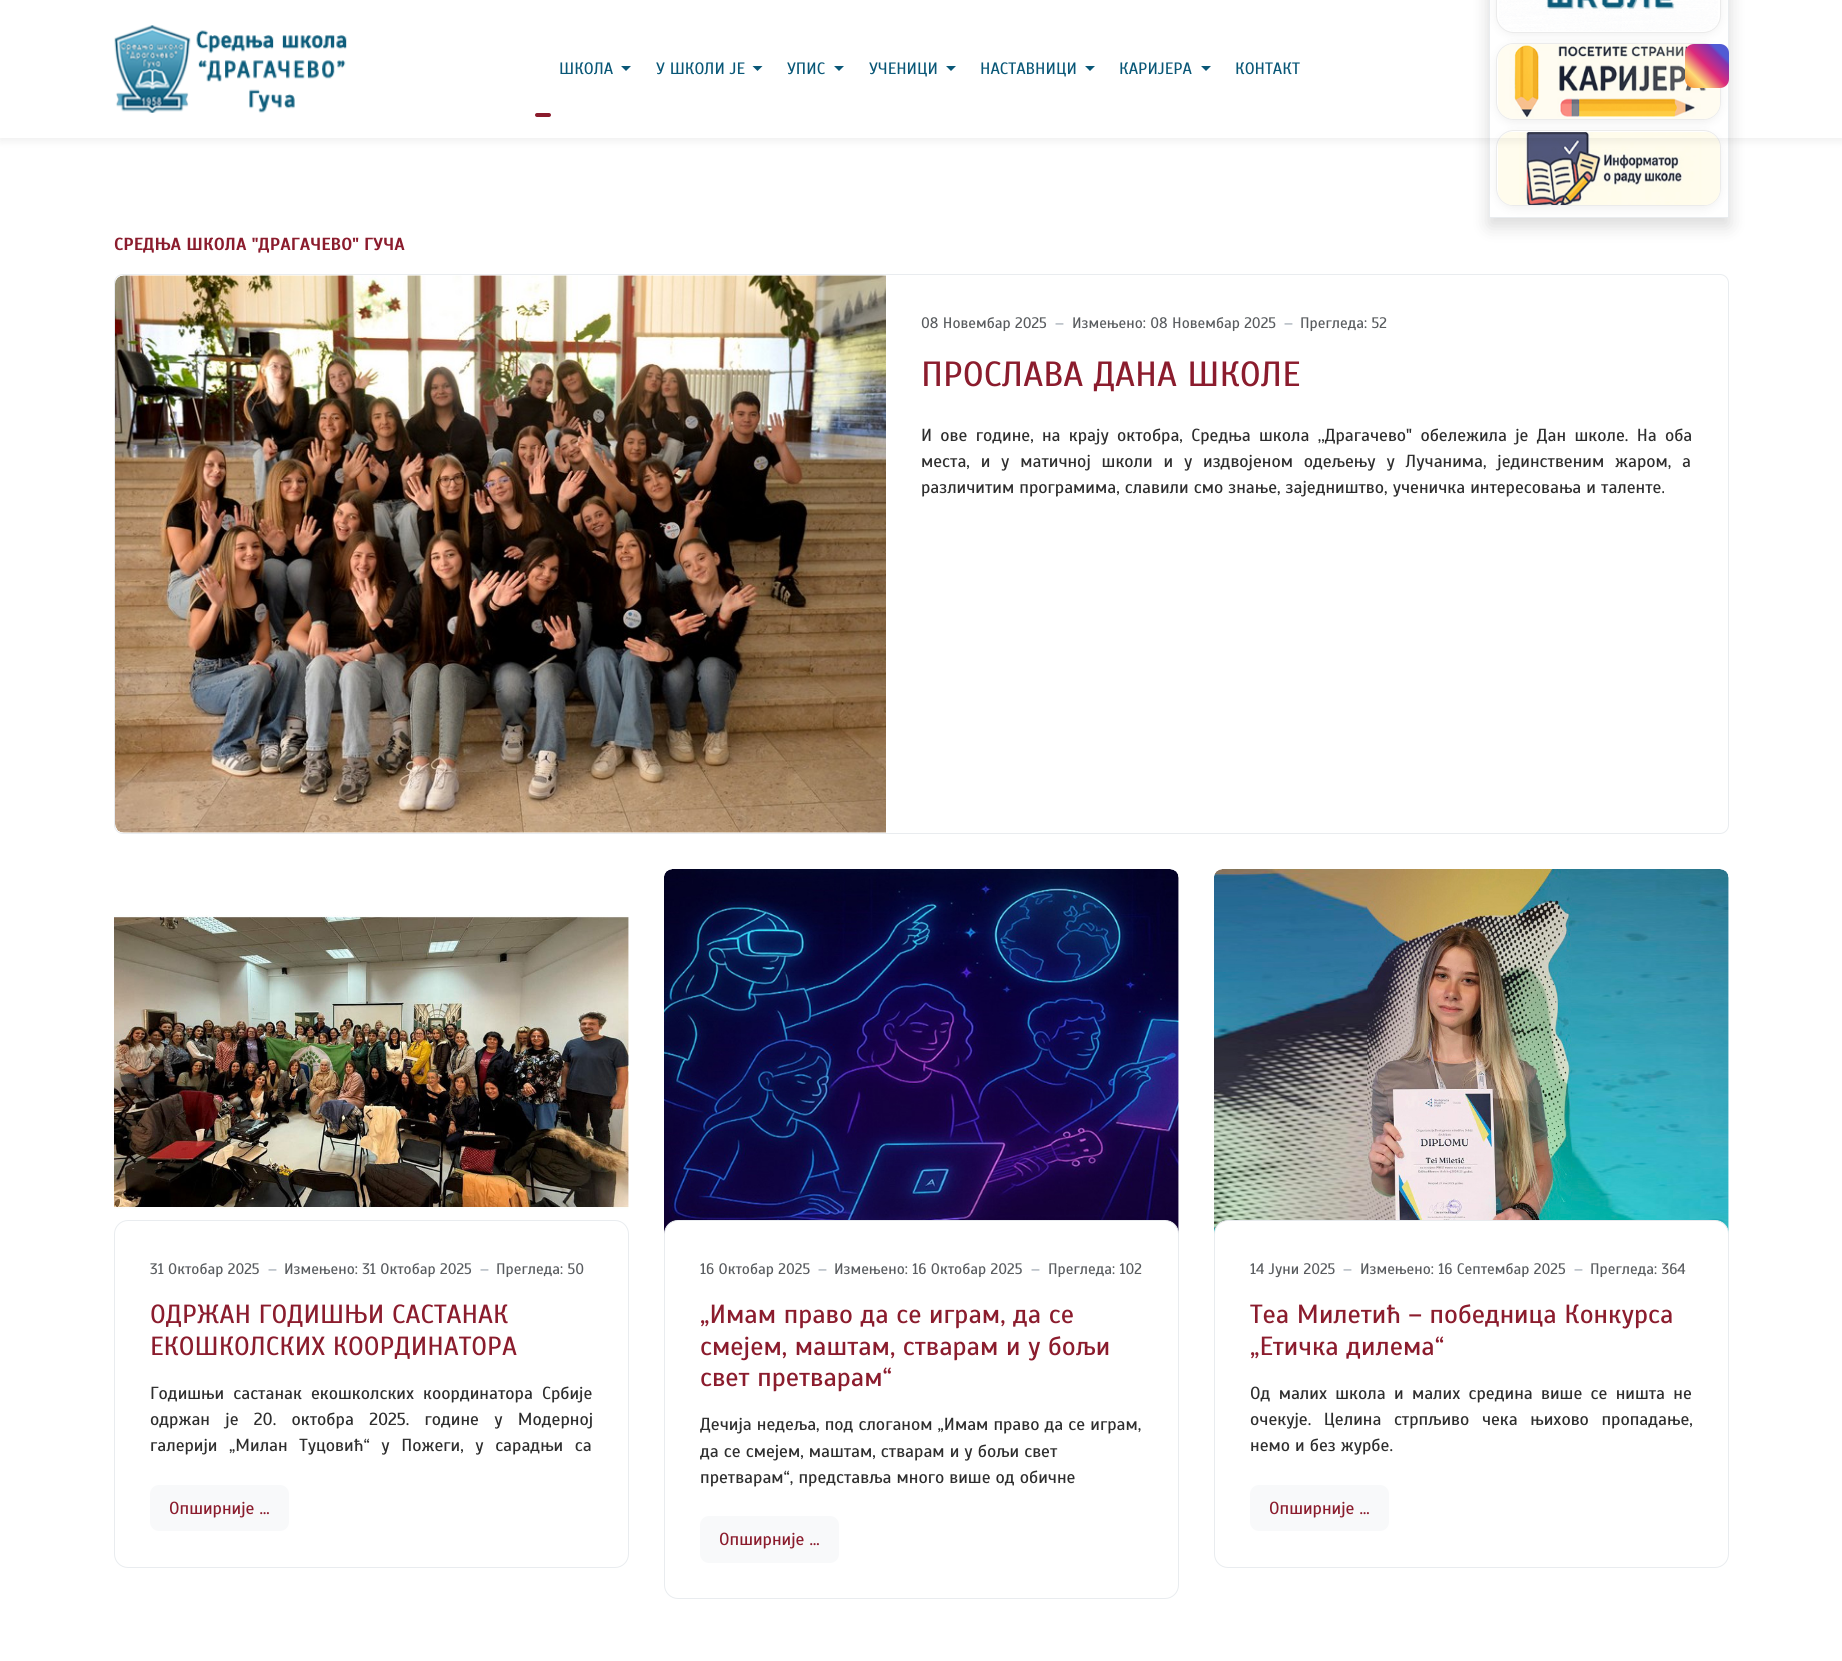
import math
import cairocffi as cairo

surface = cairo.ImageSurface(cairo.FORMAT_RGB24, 1842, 1661)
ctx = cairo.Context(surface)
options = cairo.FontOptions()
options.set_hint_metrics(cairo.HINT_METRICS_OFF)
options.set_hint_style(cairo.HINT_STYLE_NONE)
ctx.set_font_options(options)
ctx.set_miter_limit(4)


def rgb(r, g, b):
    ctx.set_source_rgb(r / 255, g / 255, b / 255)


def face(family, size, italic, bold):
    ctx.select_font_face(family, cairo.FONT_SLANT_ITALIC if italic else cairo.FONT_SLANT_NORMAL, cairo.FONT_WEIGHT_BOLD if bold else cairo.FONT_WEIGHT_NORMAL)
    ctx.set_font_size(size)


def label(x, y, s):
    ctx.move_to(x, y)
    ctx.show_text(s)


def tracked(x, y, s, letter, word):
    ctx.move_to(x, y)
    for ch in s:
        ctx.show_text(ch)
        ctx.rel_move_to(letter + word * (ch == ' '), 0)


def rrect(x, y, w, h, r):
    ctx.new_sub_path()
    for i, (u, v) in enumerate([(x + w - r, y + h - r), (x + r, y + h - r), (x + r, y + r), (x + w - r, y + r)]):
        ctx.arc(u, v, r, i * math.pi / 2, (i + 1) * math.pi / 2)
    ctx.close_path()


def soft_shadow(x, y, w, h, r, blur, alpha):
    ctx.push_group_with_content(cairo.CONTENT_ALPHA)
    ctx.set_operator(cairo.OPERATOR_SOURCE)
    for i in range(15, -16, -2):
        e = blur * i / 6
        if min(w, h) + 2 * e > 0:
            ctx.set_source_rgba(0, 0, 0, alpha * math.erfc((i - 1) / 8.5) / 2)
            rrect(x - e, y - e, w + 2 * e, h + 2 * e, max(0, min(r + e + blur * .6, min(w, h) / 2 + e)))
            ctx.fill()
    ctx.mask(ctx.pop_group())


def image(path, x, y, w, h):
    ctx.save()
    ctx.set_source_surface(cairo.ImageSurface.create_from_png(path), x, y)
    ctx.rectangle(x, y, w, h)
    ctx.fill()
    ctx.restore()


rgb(255, 255, 255)
ctx.paint()
ctx.save()
ctx.set_fill_rule(cairo.FILL_RULE_EVEN_ODD)
ctx.new_path()
ctx.move_to(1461, 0)
ctx.line_to(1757, 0)
ctx.line_to(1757, 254)
ctx.line_to(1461, 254)
ctx.close_path()
ctx.move_to(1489, -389)
ctx.line_to(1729, -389)
ctx.line_to(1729, 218)
ctx.line_to(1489, 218)
ctx.close_path()
ctx.clip()
rgb(0, 0, 0)
soft_shadow(1489, -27, 240, 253, 0, 9, 0.15)
ctx.restore()
ctx.rectangle(1489.5, -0.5, 239, 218)
rgb(233, 236, 239)
ctx.set_line_width(1)
ctx.stroke()
rgb(0, 0, 0)
soft_shadow(1496, -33, 225, 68, 18, 5, 0.06)
rgb(255, 255, 255)
rrect(1496, -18, 225, 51, 18)
ctx.fill()
rrect(1496.5, -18.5, 224, 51, 17.5)
ctx.set_source_rgba(0, 0, 0, 0.08)
ctx.stroke()
image('image1.png', 1499, 0, 219, 31)
rgb(0, 0, 0)
soft_shadow(1496, 45, 225, 78, 18, 5, 0.06)
rgb(255, 255, 255)
rrect(1496.5, 43.5, 224, 76, 17.5)
ctx.fill_preserve()
rgb(235, 235, 235)
ctx.stroke()
image('image2.png', 1498, 44, 222, 75)
rgb(0, 0, 0)
soft_shadow(1496, 133, 225, 76, 18, 5, 0.06)
rgb(255, 255, 255)
rrect(1496.5, 130.5, 224, 75, 17.5)
ctx.fill_preserve()
rgb(235, 235, 235)
ctx.stroke()
image('image3.png', 1498, 132, 222, 73)
ctx.save()
ctx.set_fill_rule(cairo.FILL_RULE_EVEN_ODD)
ctx.new_path()
ctx.move_to(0, 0)
ctx.line_to(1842, 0)
ctx.line_to(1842, 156)
ctx.line_to(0, 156)
ctx.close_path()
ctx.move_to(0, 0)
ctx.line_to(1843, 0)
ctx.line_to(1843, 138)
ctx.line_to(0, 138)
ctx.close_path()
ctx.clip()
rgb(0, 0, 0)
soft_shadow(0, 3, 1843, 137, 0, 5, 0.08)
ctx.restore()
image('image0.png', 114, 25, 233, 88)
face('Scada', 16.5, 0, 0)
rgb(9, 87, 119)
label(559, 74, 'ШКОЛА')
ctx.new_path()
ctx.move_to(621, 66)
ctx.line_to(631, 66)
ctx.line_to(626, 71)
ctx.close_path()
ctx.fill()
label(656, 74, 'У ШКОЛИ ЈЕ')
ctx.new_path()
ctx.move_to(752.5, 66)
ctx.line_to(762.5, 66)
ctx.line_to(757.5, 71)
ctx.close_path()
ctx.fill()
label(787, 74, 'УПИС')
ctx.new_path()
ctx.move_to(834, 66)
ctx.line_to(844, 66)
ctx.line_to(839, 71)
ctx.close_path()
ctx.fill()
label(869, 74, 'УЧЕНИЦИ')
ctx.new_path()
ctx.move_to(946, 66)
ctx.line_to(956, 66)
ctx.line_to(951, 71)
ctx.close_path()
ctx.fill()
label(980, 74, 'НАСТАВНИЦИ')
ctx.new_path()
ctx.move_to(1085, 66)
ctx.line_to(1095, 66)
ctx.line_to(1090, 71)
ctx.close_path()
ctx.fill()
label(1119, 74, 'КАРИЈЕРА')
ctx.new_path()
ctx.move_to(1201, 66)
ctx.line_to(1211, 66)
ctx.line_to(1206, 71)
ctx.close_path()
ctx.fill()
label(1235, 74, 'КОНТАКТ')
rgb(139, 28, 45)
rrect(535, 113, 16, 4, 2)
ctx.fill()
gradient = cairo.LinearGradient(1685, 88, 1729, 44)
gradient.add_color_stop_rgba(0, 0.961, 0.522, 0.161, 1)
gradient.add_color_stop_rgba(0.25, 0.996, 0.855, 0.467, 1)
gradient.add_color_stop_rgba(0.5, 0.867, 0.165, 0.482, 1)
gradient.add_color_stop_rgba(0.75, 0.506, 0.204, 0.686, 1)
gradient.add_color_stop_rgba(0.8, 0.318, 0.357, 0.831, 1)
ctx.set_source(gradient)
rrect(1685, 44, 44, 44, 9)
ctx.fill()
face('Scada', 17.5, 0, 1)
rgb(139, 28, 45)
label(114, 250, 'СРЕДЊА ШКОЛА "ДРАГАЧЕВО" ГУЧА')
rrect(114.5, 274.5, 1614, 559, 8.5)
rgb(233, 236, 239)
ctx.stroke()
image('image4.png', 115, 275, 771, 558)
face('Scada', 15.25, 0, 0)
rgb(89, 92, 95)
label(921, 328, '08 Новембар 2025')
face('Scada', 17.5, 0, 0)
rgb(173, 181, 189)
label(1055, 329, '–')
face('Scada', 15.25, 0, 0)
rgb(89, 92, 95)
label(1072, 328, 'Измењено: 08 Новембар 2025')
face('Scada', 17.5, 0, 0)
rgb(173, 181, 189)
label(1284, 329, '–')
face('Scada', 15.25, 0, 0)
rgb(89, 92, 95)
label(1300, 328, 'Прегледа: 52')
face('Scada', 35, 0, 0)
rgb(139, 28, 45)
label(921, 386, 'ПРОСЛАВА ДАНА ШКОЛЕ')
face('Scada', 17.5, 0, 0)
rgb(46, 46, 46)
tracked(921, 441, 'И ове године, на крају октобра, Средња школа ,,Драгачево" обележила је Дан школе. На оба', 0, 3.25)
tracked(921, 467, 'места, и у матичној школи и у издвојеном одељењу у Лучанима, јединственим жаром, а', 0, 5.75)
label(921, 493, 'различитим програмима, славили смо знање, заједништво, ученичка интересовања и таленте.')
image('image5.png', 114, 915, 515, 294)
rrect(114.5, 1220.5, 514, 347, 13.5)
rgb(233, 236, 239)
ctx.stroke()
face('Scada', 15.25, 0, 0)
rgb(89, 92, 95)
label(150, 1274, '31 Октобар 2025')
face('Scada', 17.5, 0, 0)
rgb(173, 181, 189)
label(268, 1275, '–')
face('Scada', 15.25, 0, 0)
rgb(89, 92, 95)
label(284, 1274, 'Измењено: 31 Октобар 2025')
face('Scada', 17.5, 0, 0)
rgb(173, 181, 189)
label(480, 1275, '–')
face('Scada', 15.25, 0, 0)
rgb(89, 92, 95)
label(496, 1274, 'Прегледа: 50')
face('Scada', 26.25, 0, 0)
rgb(139, 28, 45)
label(150, 1323, 'ОДРЖАН ГОДИШЊИ САСТАНАК')
label(150, 1355, 'ЕКОШКОЛСКИХ КООРДИНАТОРА')
face('Scada', 17.5, 0, 0)
rgb(46, 46, 46)
tracked(150, 1399, 'Годишњи састанак екошколских координатора Србије', 0, 4)
tracked(150, 1425, 'одржан је 20. октобра 2025. године у Модерној', 0, 10.25)
tracked(150, 1451, 'галерији „Милан Туцовић“ у Пожеги, у сарадњи са', 0, 6.5)
rgb(248, 249, 250)
rrect(150, 1485, 139, 46, 9)
ctx.fill()
rgb(139, 28, 45)
label(169, 1514, 'Опширније …')
image('image6.png', 664, 869, 515, 365)
rgb(255, 255, 255)
rrect(664.5, 1220.5, 514, 378, 13.5)
ctx.fill_preserve()
rgb(233, 236, 239)
ctx.stroke()
face('Scada', 15.25, 0, 0)
rgb(89, 92, 95)
label(700, 1274, '16 Октобар 2025')
face('Scada', 17.5, 0, 0)
rgb(173, 181, 189)
label(818, 1275, '–')
face('Scada', 15.25, 0, 0)
rgb(89, 92, 95)
label(834, 1274, 'Измењено: 16 Октобар 2025')
face('Scada', 17.5, 0, 0)
rgb(173, 181, 189)
label(1031, 1275, '–')
face('Scada', 15.25, 0, 0)
rgb(89, 92, 95)
label(1048, 1274, 'Прегледа: 102')
face('Scada', 26.25, 0, 0)
rgb(139, 28, 45)
label(700, 1323, '„Имам право да се играм, да се')
label(700, 1355, 'смејем, маштам, стварам и у бољи')
label(700, 1386, 'свет претварам“')
face('Scada', 17.5, 0, 0)
rgb(46, 46, 46)
label(700, 1430, 'Дечија недеља, под слоганом „Имам право да се играм,')
label(700, 1457, 'да се смејем, маштам, стварам и у бољи свет')
label(700, 1483, 'претварам“, представља много више од обичне')
rgb(248, 249, 250)
rrect(700, 1516, 139, 47, 9)
ctx.fill()
rgb(139, 28, 45)
label(719, 1545, 'Опширније …')
image('image7.png', 1214, 869, 515, 365)
rgb(255, 255, 255)
rrect(1214.5, 1220.5, 514, 347, 13.5)
ctx.fill_preserve()
rgb(233, 236, 239)
ctx.stroke()
face('Scada', 15.25, 0, 0)
rgb(89, 92, 95)
label(1250, 1274, '14 Јуни 2025')
face('Scada', 17.5, 0, 0)
rgb(173, 181, 189)
label(1343, 1275, '–')
face('Scada', 15.25, 0, 0)
rgb(89, 92, 95)
label(1360, 1274, 'Измењено: 16 Септембар 2025')
face('Scada', 17.5, 0, 0)
rgb(173, 181, 189)
label(1574, 1275, '–')
face('Scada', 15.25, 0, 0)
rgb(89, 92, 95)
label(1590, 1274, 'Прегледа: 364')
face('Scada', 26.25, 0, 0)
rgb(139, 28, 45)
label(1250, 1323, 'Теа Милетић – победница Конкурса')
label(1250, 1355, '„Етичка дилема“')
face('Scada', 17.5, 0, 0)
rgb(46, 46, 46)
tracked(1250, 1399, 'Од малих школа и малих средина више се ништа не', 0, 3.25)
tracked(1250, 1425, 'очекује. Целина стрпљиво чека њихово пропадање,', 0, 7.5)
label(1250, 1451, 'немо и без журбе.')
rgb(248, 249, 250)
rrect(1250, 1485, 139, 46, 9)
ctx.fill()
rgb(139, 28, 45)
label(1269, 1514, 'Опширније …')
surface.write_to_png('render.png')
